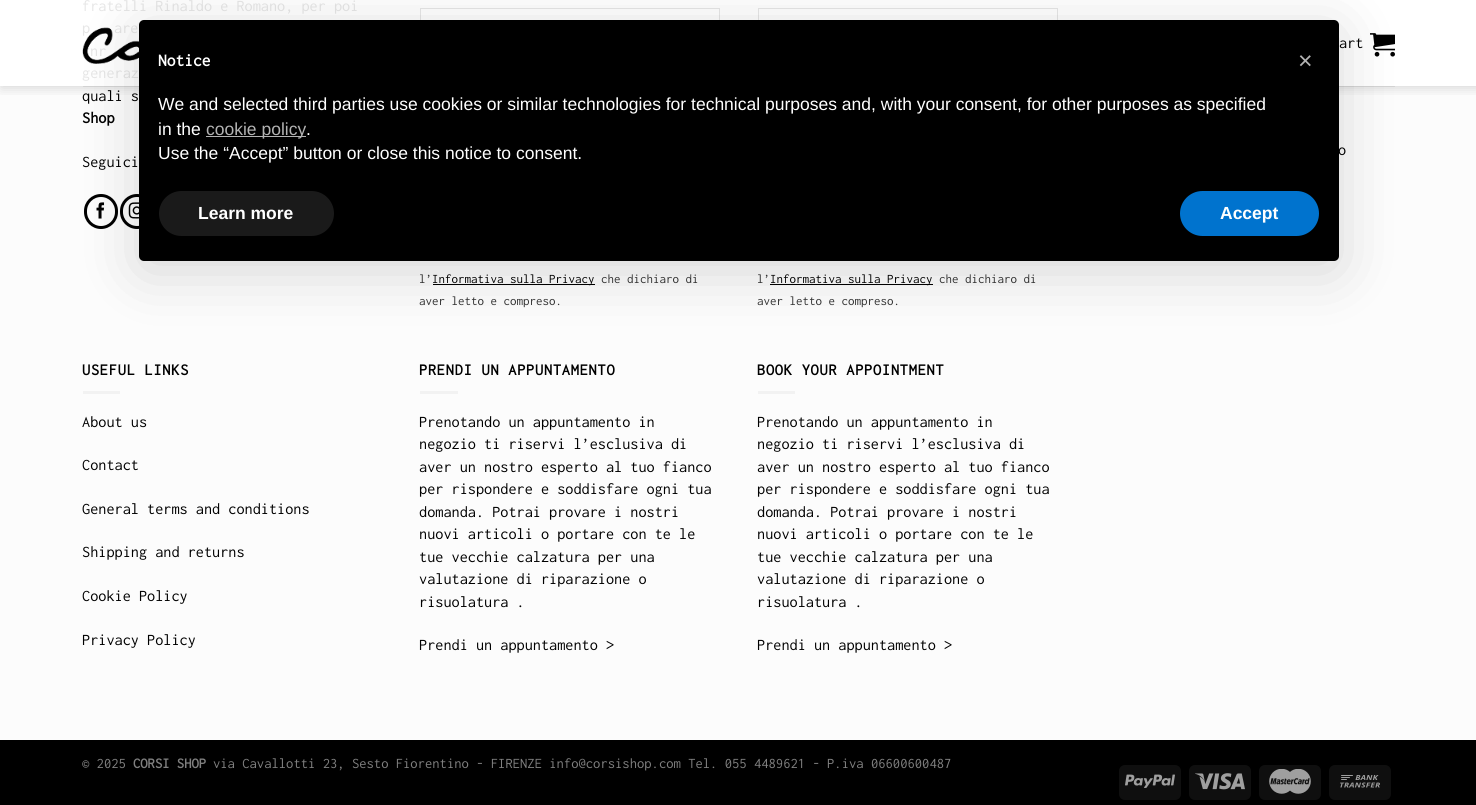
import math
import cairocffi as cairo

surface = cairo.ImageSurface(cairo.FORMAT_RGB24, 1476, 805)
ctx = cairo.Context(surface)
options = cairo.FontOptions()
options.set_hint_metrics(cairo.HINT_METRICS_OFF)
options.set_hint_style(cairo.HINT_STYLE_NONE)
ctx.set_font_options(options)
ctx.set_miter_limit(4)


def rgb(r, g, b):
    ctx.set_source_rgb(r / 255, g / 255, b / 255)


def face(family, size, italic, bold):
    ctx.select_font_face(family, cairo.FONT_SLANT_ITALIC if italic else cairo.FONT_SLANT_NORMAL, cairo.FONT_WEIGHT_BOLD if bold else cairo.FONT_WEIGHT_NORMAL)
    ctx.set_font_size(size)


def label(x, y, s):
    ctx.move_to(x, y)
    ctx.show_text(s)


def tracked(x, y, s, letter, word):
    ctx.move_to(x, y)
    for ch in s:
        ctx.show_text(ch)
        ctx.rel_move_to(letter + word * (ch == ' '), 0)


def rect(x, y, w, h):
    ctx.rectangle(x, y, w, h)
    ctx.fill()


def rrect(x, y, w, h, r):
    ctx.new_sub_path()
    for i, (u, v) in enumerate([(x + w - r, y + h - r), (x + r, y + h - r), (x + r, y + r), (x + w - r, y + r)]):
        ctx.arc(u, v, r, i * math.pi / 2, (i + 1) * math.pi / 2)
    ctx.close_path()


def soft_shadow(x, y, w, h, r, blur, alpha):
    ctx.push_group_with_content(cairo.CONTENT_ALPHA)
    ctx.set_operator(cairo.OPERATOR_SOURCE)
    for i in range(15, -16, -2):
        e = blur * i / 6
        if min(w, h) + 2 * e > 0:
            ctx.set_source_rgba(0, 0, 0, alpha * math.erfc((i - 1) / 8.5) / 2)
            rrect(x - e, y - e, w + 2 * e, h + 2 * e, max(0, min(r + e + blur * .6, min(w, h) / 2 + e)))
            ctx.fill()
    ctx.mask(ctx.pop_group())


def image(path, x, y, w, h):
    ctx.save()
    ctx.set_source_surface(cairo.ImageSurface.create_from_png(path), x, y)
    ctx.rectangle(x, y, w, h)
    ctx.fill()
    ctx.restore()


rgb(252, 252, 252)
ctx.paint()
rgb(255, 255, 255)
rect(0, 0, 1476, 86)
face('Inconsolata', 16.25, 0, 0)
rgb(230, 230, 230)
label(82, 11, 'fratelli Rinaldo e Romano, per poi')
label(82, 33, 'p')
label(114, 33, 'are')
label(90, 56, 'nr')
label(82, 78, 'generaz')
rgb(0, 0, 0)
label(82, 101, 'quali s')
face('Inconsolata', 16.25, 0, 1)
label(82, 123, 'Shop')
face('Inconsolata', 16.25, 0, 0)
label(82, 167, 'Seguici')
rrect(85.5, 195.5, 31, 32, 15.5)
ctx.set_line_width(3)
ctx.stroke()
image('image0.png', 96, 202, 9, 17)
rrect(121.5, 195.5, 31, 32, 15.5)
ctx.stroke()
image('image1.png', 128, 202, 11, 17)
label(1338, 155, 'o')
ctx.rectangle(420.5, 8.5, 299, 40)
rgb(230, 230, 230)
ctx.set_line_width(1)
ctx.stroke()
face('Inconsolata', 13, 0, 0)
rgb(51, 51, 51)
label(419, 283, 'l’')
rgb(0, 0, 0)
rect(433, 284, 162, 1)
label(432, 283, 'Informativa sulla Privacy')
rgb(51, 51, 51)
label(601, 283, 'che dichiaro di')
label(419, 305, 'aver letto e compreso.')
ctx.rectangle(758.5, 8.5, 299, 40)
rgb(230, 230, 230)
ctx.stroke()
rgb(51, 51, 51)
label(757, 283, 'l’')
rgb(0, 0, 0)
rect(770, 284, 163, 1)
label(770, 283, 'Informativa sulla Privacy')
rgb(51, 51, 51)
label(939, 283, 'che dichiaro di')
label(757, 305, 'aver letto e compreso.')
face('Inconsolata', 16.25, 0, 1)
rgb(0, 0, 0)
tracked(82, 375, 'USEFUL LINKS', 0.8, 0)
rgb(242, 242, 242)
rect(83, 391, 37, 3)
face('Inconsolata', 16.25, 0, 0)
rgb(0, 0, 0)
label(82, 427, 'About us')
label(82, 470, 'Contact')
label(82, 514, 'General terms and conditions')
label(82, 557, 'Shipping and returns')
label(82, 601, 'Cookie Policy')
label(82, 645, 'Privacy Policy')
face('Inconsolata', 16.25, 0, 1)
tracked(419, 375, 'PRENDI UN APPUNTAMENTO', 0.8, 0)
rgb(242, 242, 242)
rect(420, 391, 38, 3)
face('Inconsolata', 16.25, 0, 0)
rgb(0, 0, 0)
label(419, 427, 'Prenotando un appuntamento in')
label(419, 449, 'negozio ti riservi l’esclusiva di')
label(419, 472, 'aver un nostro esperto al tuo fianco')
label(419, 494, 'per rispondere e soddisfare ogni tua')
label(419, 517, 'domanda. Potrai provare i nostri')
label(419, 539, 'nuovi articoli o portare con te le')
label(419, 562, 'tue vecchie calzatura per una')
label(419, 584, 'valutazione di riparazione o')
label(419, 607, 'risuolatura .')
label(419, 650, 'Prendi un appuntamento >')
face('Inconsolata', 16.25, 0, 1)
tracked(757, 375, 'BOOK YOUR APPOINTMENT', 0.8, 0)
rgb(242, 242, 242)
rect(758, 391, 37, 3)
face('Inconsolata', 16.25, 0, 0)
rgb(0, 0, 0)
label(757, 427, 'Prenotando un appuntamento in')
label(757, 449, 'negozio ti riservi l’esclusiva di')
label(757, 472, 'aver un nostro esperto al tuo fianco')
label(757, 494, 'per rispondere e soddisfare ogni tua')
label(757, 517, 'domanda. Potrai provare i nostri')
label(757, 539, 'nuovi articoli o portare con te le')
label(757, 562, 'tue vecchie calzatura per una')
label(757, 584, 'valutazione di riparazione o')
label(757, 607, 'risuolatura .')
label(757, 650, 'Prendi un appuntamento >')
rect(0, 740, 1476, 65)
face('Inconsolata', 14.62, 0, 0)
rgb(128, 128, 128)
label(82, 768, '© 2025')
face('Inconsolata', 14.62, 0, 1)
label(133, 768, 'CORSI SHOP')
face('Inconsolata', 14.62, 0, 0)
label(213, 768, 'via Cavallotti 23, Sesto Fiorentino - FIRENZE info@corsishop.com Tel. 055 4489621 - P.iva 06600600487')
rgb(15, 15, 15)
rrect(1119, 765, 62, 35, 6)
ctx.fill()
image('image2.png', 1125, 774, 50, 14)
rrect(1189, 765, 62, 35, 6)
ctx.fill()
image('image3.png', 1195, 773, 50, 17)
rrect(1259, 765, 62, 35, 6)
ctx.fill()
image('image4.png', 1269, 769, 42, 25)
rrect(1329, 765, 62, 35, 6)
ctx.fill()
image('image5.png', 1340, 775, 40, 13)
ctx.save()
ctx.rectangle(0, 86, 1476, 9)
ctx.clip()
rgb(0, 0, 0)
soft_shadow(1, 1, 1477, 87, 0, 6, 0.15)
ctx.restore()
image('image6.png', 82, 27, 57, 37)
face('Inconsolata', 16.25, 0, 0)
rgb(0, 0, 0)
label(1339, 48, 'art')
image('image7.png', 1370, 33, 25, 24)
rgb(211, 211, 211)
rect(83, 86, 1312, 1)
rgb(0, 0, 0)
soft_shadow(139, 30, 1200, 241, 5, 30, 0.15)
rgb(0, 0, 0)
rrect(139, 20, 1200, 241, 5)
ctx.fill()
face('Inconsolata', 17.5, 0, 1)
rgb(255, 255, 255)
label(158, 66, 'Notice')
face('Liberation Sans', 17.5, 0, 0)
label(158, 110, 'We and selected third parties use cookies or similar technologies for technical purposes and, with your consent, for other purposes as specified')
label(158, 135, 'in the')
rgb(179, 179, 179)
rect(206, 136, 100, 1)
label(206, 135, 'cookie policy')
rgb(255, 255, 255)
label(306, 135, '.')
label(158, 159, 'Use the “Accept” button or close this notice to consent.')
face('Liberation Sans', 25, 0, 0)
rgb(179, 179, 179)
label(1298, 69, '×')
rgb(26, 26, 26)
rrect(159, 191, 175, 45, 22.5)
ctx.fill()
face('Liberation Sans', 17.5, 0, 1)
rgb(255, 255, 255)
label(198, 219, 'Learn more')
rgb(0, 115, 206)
rrect(1180, 191, 139, 45, 22.5)
ctx.fill()
rgb(255, 255, 255)
label(1220, 219, 'Accept')
surface.write_to_png('render.png')
